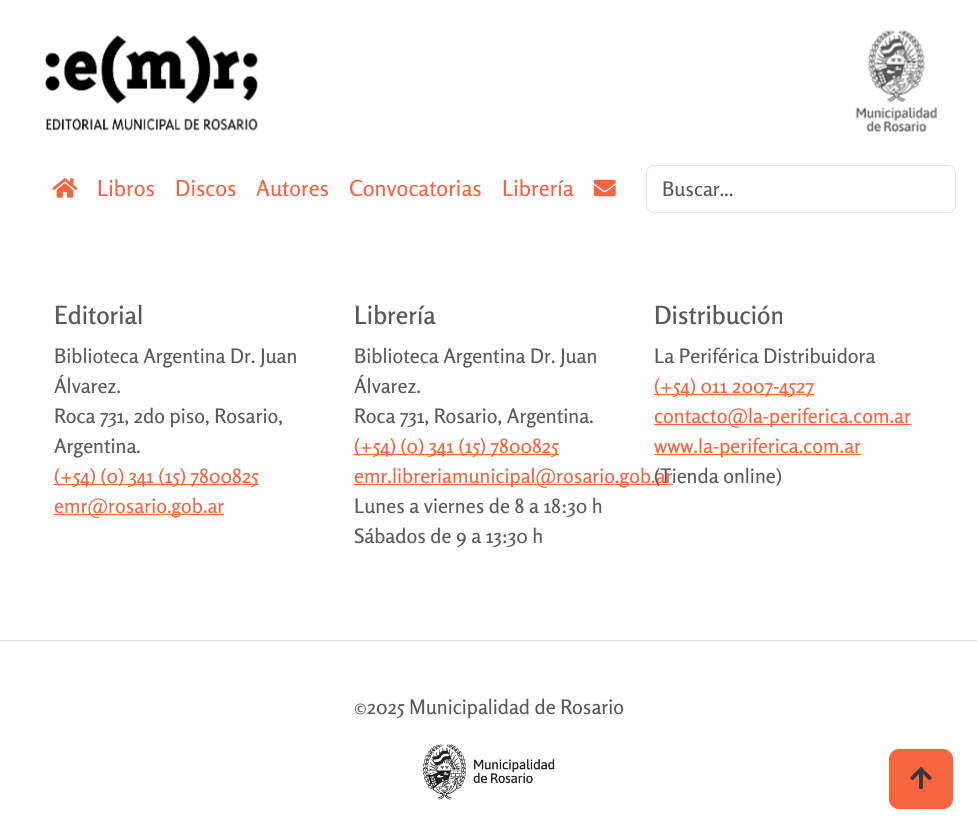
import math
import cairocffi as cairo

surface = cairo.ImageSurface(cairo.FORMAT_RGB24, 977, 833)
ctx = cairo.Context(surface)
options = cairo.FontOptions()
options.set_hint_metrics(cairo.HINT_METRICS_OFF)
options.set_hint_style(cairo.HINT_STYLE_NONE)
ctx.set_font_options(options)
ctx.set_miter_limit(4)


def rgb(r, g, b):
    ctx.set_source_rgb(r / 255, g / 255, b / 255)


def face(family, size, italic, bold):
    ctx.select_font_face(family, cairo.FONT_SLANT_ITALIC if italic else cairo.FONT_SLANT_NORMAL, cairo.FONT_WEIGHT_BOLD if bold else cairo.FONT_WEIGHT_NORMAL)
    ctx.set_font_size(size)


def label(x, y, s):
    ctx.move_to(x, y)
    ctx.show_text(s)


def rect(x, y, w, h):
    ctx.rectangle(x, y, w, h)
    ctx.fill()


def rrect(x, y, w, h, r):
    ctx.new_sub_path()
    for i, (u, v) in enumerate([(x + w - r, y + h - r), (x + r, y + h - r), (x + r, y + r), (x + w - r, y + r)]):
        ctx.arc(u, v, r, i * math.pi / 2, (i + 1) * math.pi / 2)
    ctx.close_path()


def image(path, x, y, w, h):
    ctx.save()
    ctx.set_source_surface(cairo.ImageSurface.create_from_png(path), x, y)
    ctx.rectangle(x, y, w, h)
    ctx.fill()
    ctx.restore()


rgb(255, 255, 255)
ctx.paint()
image('image0.png', 45, 35, 214, 96)
image('image1.png', 855, 30, 83, 102)
image('image2.png', 52, 178, 26, 20)
face('Rosario Medium', 22, 0, 0)
rgb(247, 101, 64)
label(97, 196, 'Libros')
label(175, 196, 'Discos')
label(256, 196, 'Autores')
label(349, 196, 'Convocatorias')
label(502, 196, 'Librería')
image('image3.png', 593, 179, 23, 18)
rrect(646.5, 165.5, 309, 47, 7.5)
rgb(222, 226, 230)
ctx.set_line_width(1)
ctx.stroke()
face('Rosario Medium', 20, 0, 0)
rgb(90, 90, 90)
label(662, 196, 'Buscar...')
face('Rosario SemiBold', 25, 0, 0)
label(54, 324, 'Editorial')
face('Rosario Medium', 20, 0, 0)
label(54, 363, 'Biblioteca Argentina Dr. Juan')
label(54, 393, 'Álvarez.')
label(54, 423, 'Roca 731, 2do piso, Rosario,')
label(54, 453, 'Argentina.')
rgb(247, 101, 64)
rect(54, 484, 205, 1)
label(54, 483, '(+54) (0) 341 (15) 7800825')
rect(54, 514, 170, 1)
label(54, 513, 'emr@rosario.gob.ar')
face('Rosario SemiBold', 25, 0, 0)
rgb(90, 90, 90)
label(354, 324, 'Librería')
face('Rosario Medium', 20, 0, 0)
label(354, 363, 'Biblioteca Argentina Dr. Juan')
label(354, 393, 'Álvarez.')
label(354, 423, 'Roca 731, Rosario, Argentina.')
rgb(247, 101, 64)
rect(354, 454, 205, 1)
label(354, 453, '(+54) (0) 341 (15) 7800825')
rect(354, 484, 319, 1)
label(354, 483, 'emr.libreriamunicipal@rosario.gob.ar')
rgb(90, 90, 90)
label(354, 513, 'Lunes a viernes de 8 a 18:30 h')
label(354, 543, 'Sábados de 9 a 13:30 h')
face('Rosario SemiBold', 25, 0, 0)
label(654, 324, 'Distribución')
face('Rosario Medium', 20, 0, 0)
label(654, 363, 'La Periférica Distribuidora')
rgb(247, 101, 64)
rect(654, 394, 160, 1)
label(654, 393, '(+54) 011 2007-4527')
rect(654, 424, 257, 1)
label(654, 423, 'contacto@la-periferica.com.ar')
rect(654, 454, 207, 1)
label(654, 453, 'www.la-periferica.com.ar')
rgb(90, 90, 90)
label(654, 483, '(Tienda online)')
rgb(222, 226, 230)
rect(0, 640, 977, 1)
rgb(90, 90, 90)
label(354, 714, '©2025 Municipalidad de Rosario')
image('image4.png', 422, 744, 133, 56)
rgb(247, 101, 64)
rrect(889.5, 749.5, 63, 59, 9.5)
ctx.fill_preserve()
ctx.stroke()
image('image5.png', 910, 767, 22, 23)
surface.write_to_png('render.png')
